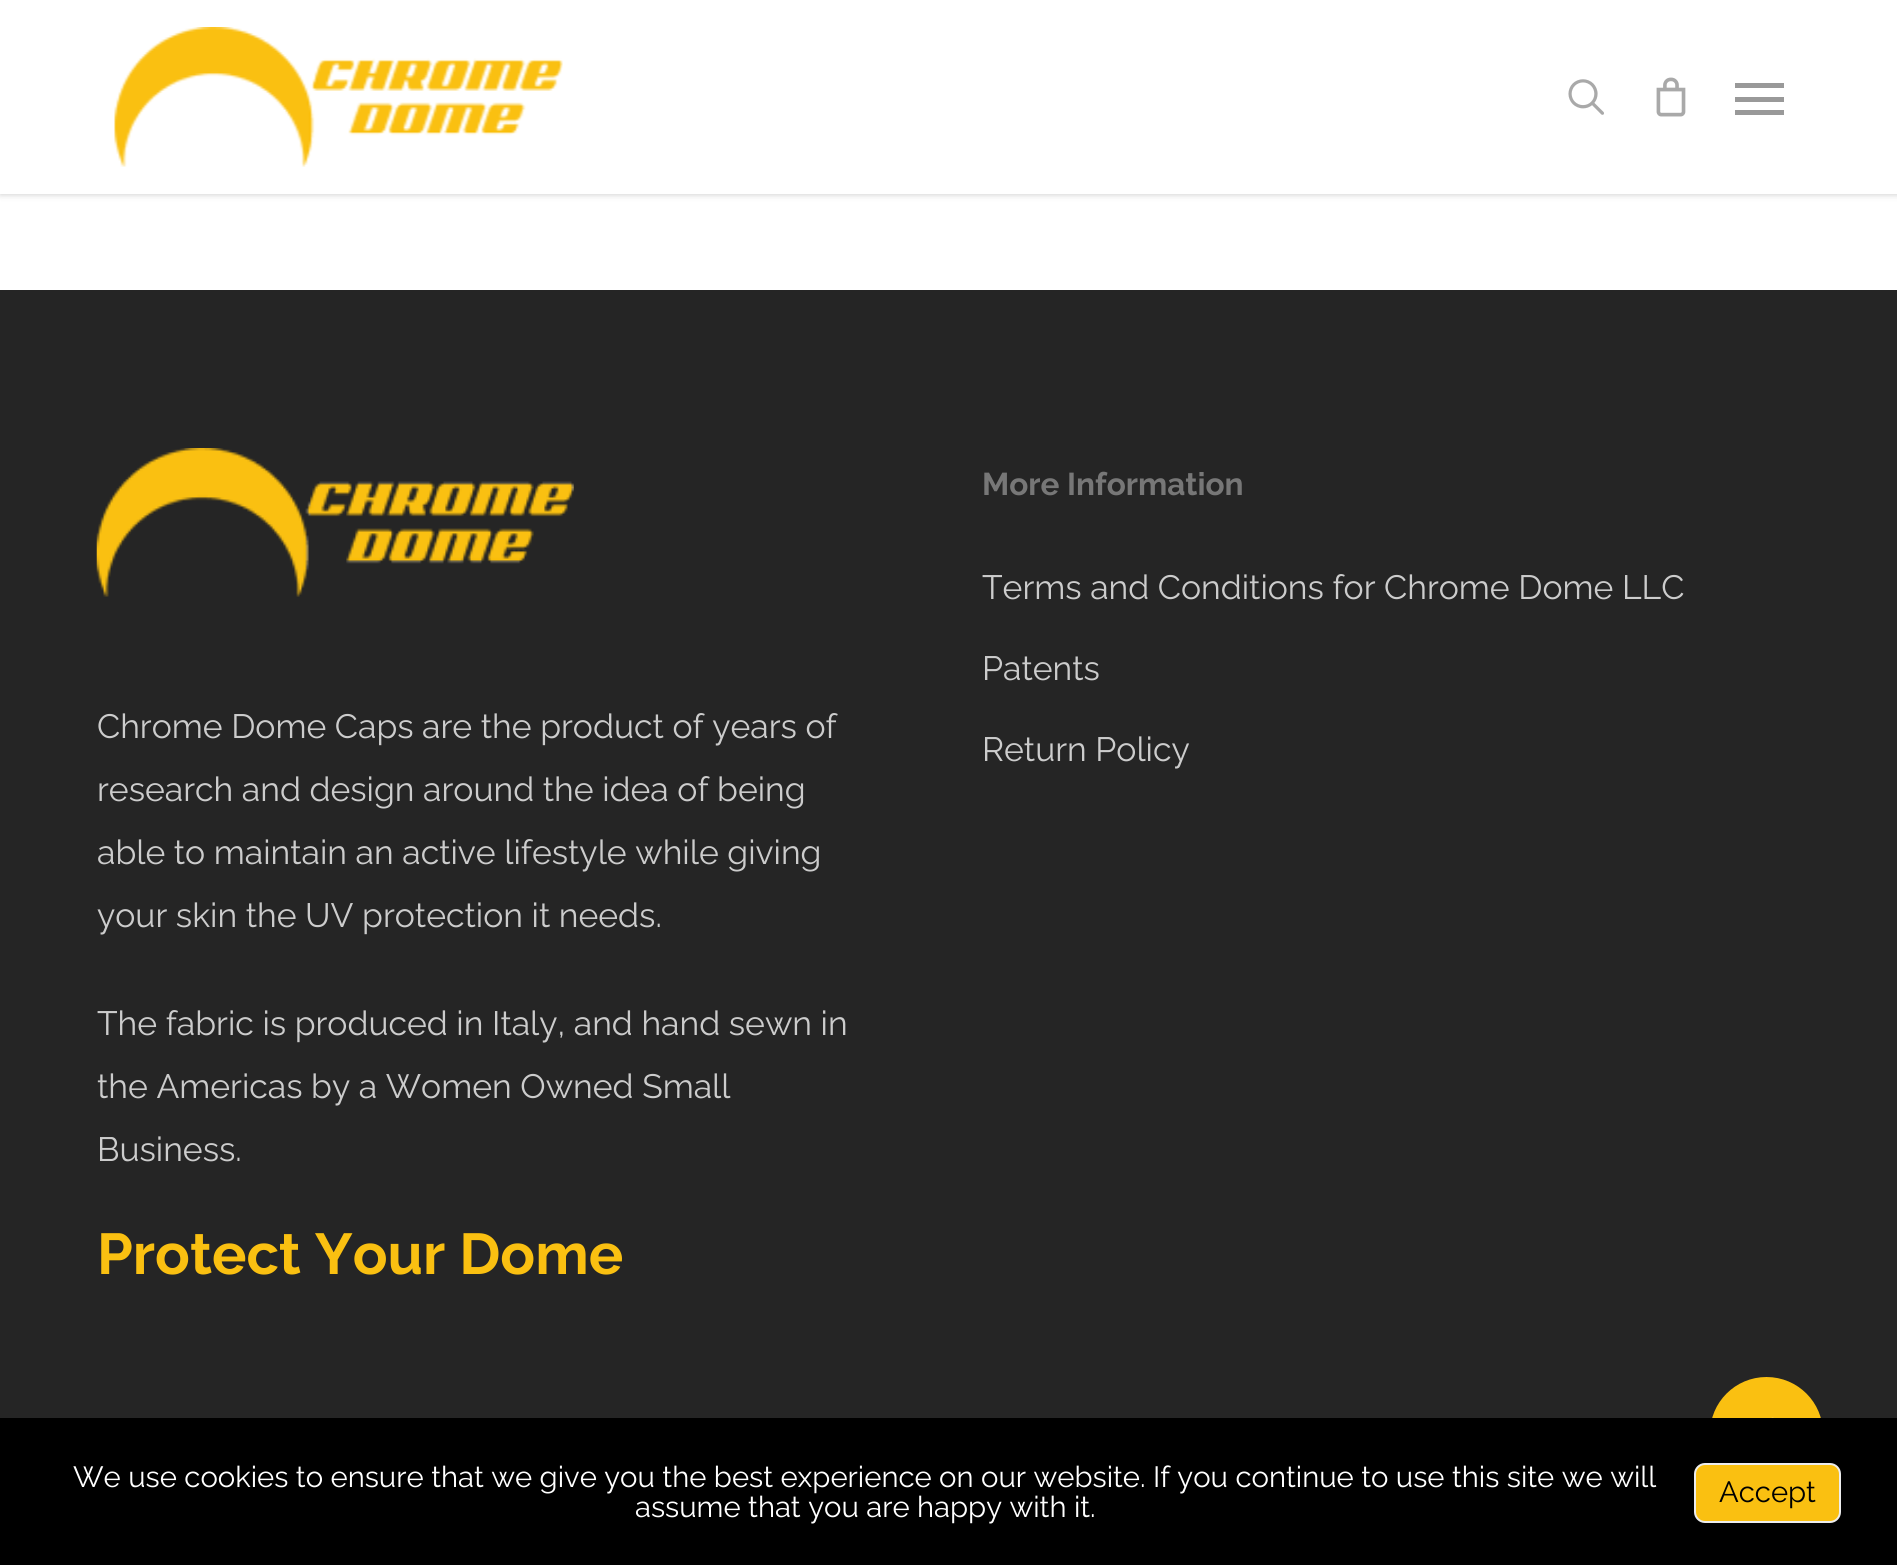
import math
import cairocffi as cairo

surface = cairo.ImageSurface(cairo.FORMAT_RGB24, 1897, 1565)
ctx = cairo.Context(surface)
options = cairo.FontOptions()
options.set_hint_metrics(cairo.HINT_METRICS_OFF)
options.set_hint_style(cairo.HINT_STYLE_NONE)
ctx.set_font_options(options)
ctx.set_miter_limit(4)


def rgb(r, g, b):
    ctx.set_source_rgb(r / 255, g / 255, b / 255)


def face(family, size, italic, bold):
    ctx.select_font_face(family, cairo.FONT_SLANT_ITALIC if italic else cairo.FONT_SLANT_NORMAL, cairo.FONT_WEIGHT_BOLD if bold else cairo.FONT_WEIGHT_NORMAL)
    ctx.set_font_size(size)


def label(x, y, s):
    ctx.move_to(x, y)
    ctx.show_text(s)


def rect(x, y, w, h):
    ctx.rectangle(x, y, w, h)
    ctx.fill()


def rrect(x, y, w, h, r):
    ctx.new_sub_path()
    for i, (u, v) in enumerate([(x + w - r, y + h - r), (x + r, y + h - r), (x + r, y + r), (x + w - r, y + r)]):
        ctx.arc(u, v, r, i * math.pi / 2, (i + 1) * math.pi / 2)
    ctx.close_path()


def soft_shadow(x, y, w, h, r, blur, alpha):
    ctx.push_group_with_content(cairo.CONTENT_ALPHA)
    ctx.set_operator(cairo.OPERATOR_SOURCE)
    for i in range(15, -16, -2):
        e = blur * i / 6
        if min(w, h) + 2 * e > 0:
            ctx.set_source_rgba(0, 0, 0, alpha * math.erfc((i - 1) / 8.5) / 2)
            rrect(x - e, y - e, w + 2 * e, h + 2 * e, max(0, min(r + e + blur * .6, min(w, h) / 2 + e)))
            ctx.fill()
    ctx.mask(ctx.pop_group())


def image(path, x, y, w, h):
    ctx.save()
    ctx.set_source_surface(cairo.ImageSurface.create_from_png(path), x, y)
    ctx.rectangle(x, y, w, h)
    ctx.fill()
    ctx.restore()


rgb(255, 255, 255)
ctx.paint()
rgb(0, 0, 0)
soft_shadow(0, -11, 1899, 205, 0, 3.5, 0.22)
rgb(255, 255, 255)
rect(0, 0, 1897, 194)
image('image0.png', 114, 27, 449, 140)
image('image1.png', 1568, 79, 36, 36)
image('image2.png', 1656, 77, 30, 40)
rgb(153, 153, 153)
rect(1735, 83, 49, 5)
rect(1735, 110, 49, 5)
rect(1735, 97, 49, 5)
rgb(37, 37, 37)
rect(0, 290, 1897, 1128)
face('Raleway', 31.5, 0, 1)
rgb(119, 119, 119)
label(982, 495, 'More Information')
face('Raleway', 33.75, 0, 0)
rgb(204, 204, 204)
label(982, 599, 'Terms and Conditions for Chrome Dome LLC')
label(982, 680, 'Patents')
label(982, 761, 'Return Policy')
image('image3.png', 96, 448, 478, 149)
label(97, 738, 'Chrome Dome Caps are the product of years of')
label(97, 801, 'research and design around the idea of being')
label(97, 864, 'able to maintain an active lifestyle while giving')
label(97, 927, 'your skin the UV protection it needs.')
label(97, 1035, 'The fabric is produced in Italy, and hand sewn in')
label(97, 1098, 'the Americas by a Women Owned Small')
label(97, 1161, 'Business.')
face('Raleway', 57.5, 0, 1)
rgb(250, 192, 17)
label(97, 1274, 'Protect Your Dome')
ctx.new_path()
ctx.arc(1766.5, 1433.5, 56.5, 0, 2 * math.pi)
ctx.fill()
image('image4.png', 1771, 1417, 3, 1)
rgb(0, 0, 0)
rect(0, 1418, 1897, 147)
face('Raleway', 29.25, 0, 0)
rgb(255, 255, 255)
label(73, 1487, 'We use cookies to ensure that we give you the best experience on our website. If you continue to use this site we will')
label(635, 1517, 'assume that you are happy with it.')
rgb(250, 192, 17)
rrect(1695, 1464, 145, 58, 10)
ctx.fill_preserve()
rgb(237, 237, 237)
ctx.stroke()
rgb(0, 0, 0)
label(1719, 1502, 'Accept')
surface.write_to_png('render.png')
